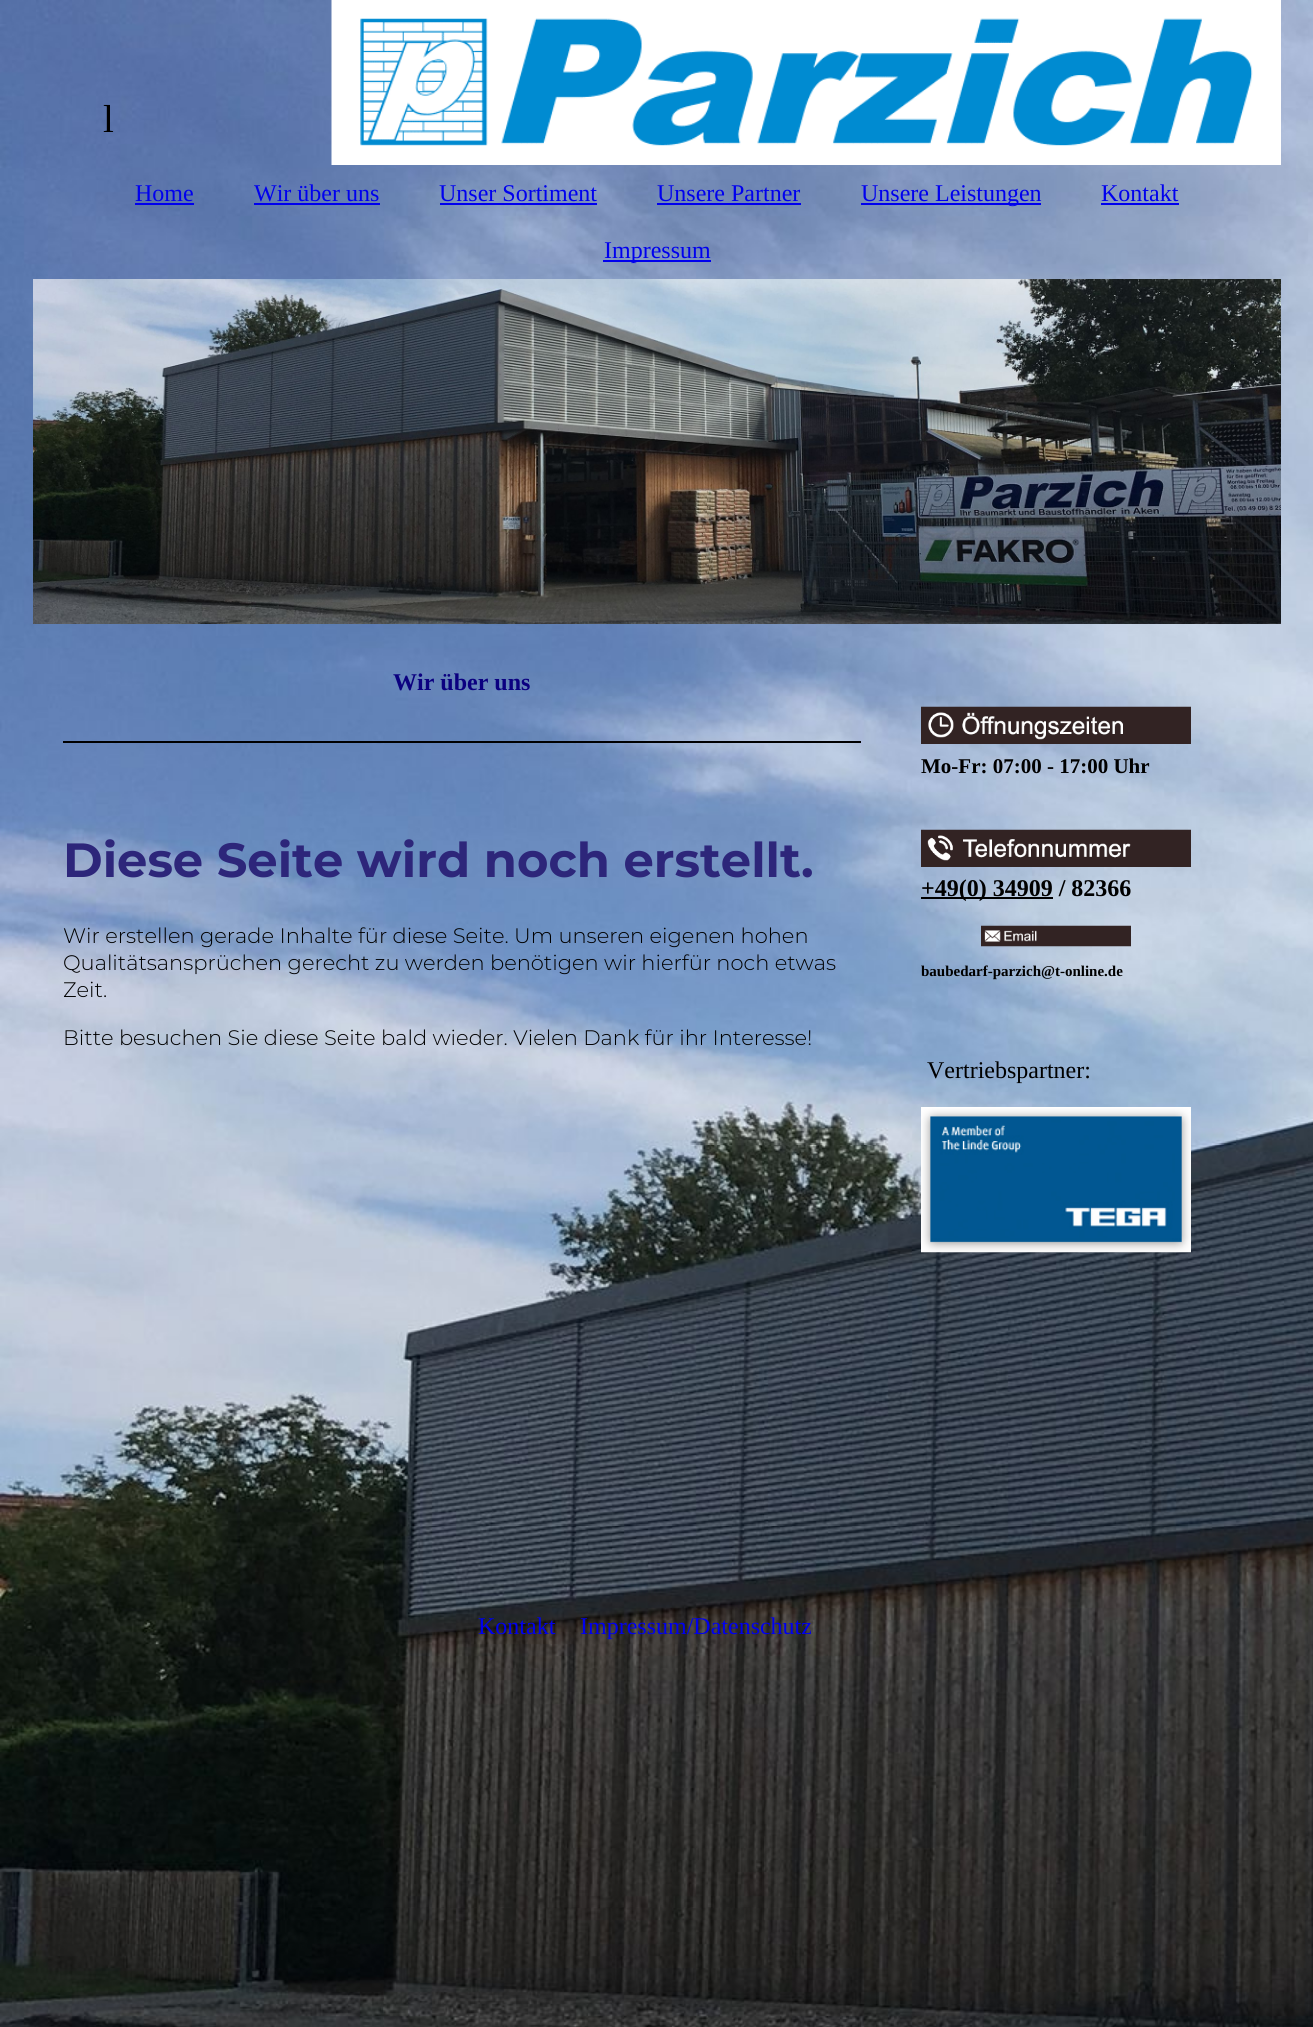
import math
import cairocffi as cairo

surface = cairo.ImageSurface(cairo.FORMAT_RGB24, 1313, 2027)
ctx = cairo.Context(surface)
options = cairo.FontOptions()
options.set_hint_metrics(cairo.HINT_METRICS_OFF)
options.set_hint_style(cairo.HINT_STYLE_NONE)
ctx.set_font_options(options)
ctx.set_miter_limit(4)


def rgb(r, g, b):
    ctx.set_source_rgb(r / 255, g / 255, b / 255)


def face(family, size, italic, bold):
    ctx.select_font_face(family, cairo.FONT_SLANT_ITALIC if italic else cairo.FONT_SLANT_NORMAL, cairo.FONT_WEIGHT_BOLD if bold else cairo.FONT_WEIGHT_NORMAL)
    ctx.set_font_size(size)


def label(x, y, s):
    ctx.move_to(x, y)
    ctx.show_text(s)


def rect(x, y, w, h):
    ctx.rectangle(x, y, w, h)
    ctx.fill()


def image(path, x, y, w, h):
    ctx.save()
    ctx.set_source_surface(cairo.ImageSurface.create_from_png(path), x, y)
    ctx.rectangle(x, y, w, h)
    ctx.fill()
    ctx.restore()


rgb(255, 255, 255)
ctx.paint()
image('image0.png', 0, 0, 1313, 2027)
face('Liberation Serif', 39, 0, 0)
rgb(0, 0, 0)
label(103, 132, 'l')
image('image1.png', 331, 0, 950, 165)
face('Liberation Serif', 24, 0, 0)
rgb(0, 0, 238)
label(135, 201, 'Home')
rect(135, 203, 59, 2)
label(254, 201, 'Wir über uns')
rect(254, 203, 126, 2)
label(439, 201, 'Unser Sortiment')
rect(440, 203, 157, 2)
label(657, 201, 'Unsere Partner')
rect(657, 203, 144, 2)
rect(861, 203, 180, 2)
label(861, 201, 'Unsere Leistungen')
label(1101, 201, 'Kontakt')
rect(1101, 203, 78, 2)
rect(603, 260, 108, 2)
label(604, 258, 'Impressum')
image('image2.png', 33, 279, 1248, 345)
face('Liberation Serif', 24, 0, 1)
rgb(11, 0, 128)
label(393, 690, 'Wir über uns')
rgb(0, 0, 0)
rect(63, 741, 798, 2)
face('Montserrat', 48, 0, 1)
rgb(45, 38, 122)
label(63, 877, 'Diese Seite wird noch erstellt.')
face('Montserrat Light', 21, 0, 0)
rgb(0, 0, 0)
label(63, 943, 'Wir erstellen gerade Inhalte für diese Seite. Um unseren eigenen hohen')
label(63, 970, 'Qualitätsansprüchen gerecht zu werden benötigen wir hierfür noch etwas')
label(63, 997, 'Zeit.')
label(63, 1045, 'Bitte besuchen Sie diese Seite bald wieder. Vielen Dank für ihr Interesse!')
image('image3.png', 921, 706, 270, 38)
face('Liberation Serif', 21, 0, 1)
label(921, 773, 'Mo-Fr: 07:00 - 17:00 Uhr')
image('image4.png', 921, 829, 270, 38)
rect(921, 897, 132, 2)
face('Liberation Serif', 24, 0, 1)
label(921, 896, '+49(0) 34909 / 82366')
image('image5.png', 981, 925, 150, 22)
face('Liberation Serif', 15, 0, 1)
label(921, 976, 'baubedarf-parzich@t-online.de')
face('Liberation Serif', 24, 0, 0)
label(927, 1078, 'Vertriebspartner:')
image('image6.png', 921, 1107, 270, 146)
rgb(0, 0, 238)
label(478, 1634, 'Kontakt')
label(580, 1634, 'Impressum/Datenschutz')
surface.write_to_png('render.png')
